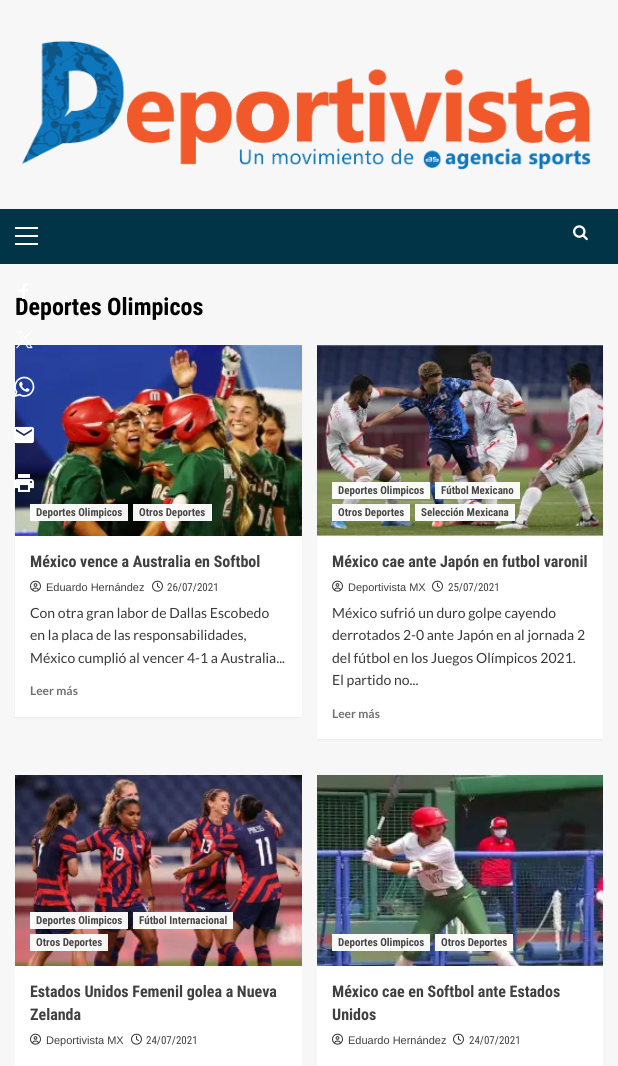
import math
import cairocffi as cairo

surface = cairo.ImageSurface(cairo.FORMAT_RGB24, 618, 1066)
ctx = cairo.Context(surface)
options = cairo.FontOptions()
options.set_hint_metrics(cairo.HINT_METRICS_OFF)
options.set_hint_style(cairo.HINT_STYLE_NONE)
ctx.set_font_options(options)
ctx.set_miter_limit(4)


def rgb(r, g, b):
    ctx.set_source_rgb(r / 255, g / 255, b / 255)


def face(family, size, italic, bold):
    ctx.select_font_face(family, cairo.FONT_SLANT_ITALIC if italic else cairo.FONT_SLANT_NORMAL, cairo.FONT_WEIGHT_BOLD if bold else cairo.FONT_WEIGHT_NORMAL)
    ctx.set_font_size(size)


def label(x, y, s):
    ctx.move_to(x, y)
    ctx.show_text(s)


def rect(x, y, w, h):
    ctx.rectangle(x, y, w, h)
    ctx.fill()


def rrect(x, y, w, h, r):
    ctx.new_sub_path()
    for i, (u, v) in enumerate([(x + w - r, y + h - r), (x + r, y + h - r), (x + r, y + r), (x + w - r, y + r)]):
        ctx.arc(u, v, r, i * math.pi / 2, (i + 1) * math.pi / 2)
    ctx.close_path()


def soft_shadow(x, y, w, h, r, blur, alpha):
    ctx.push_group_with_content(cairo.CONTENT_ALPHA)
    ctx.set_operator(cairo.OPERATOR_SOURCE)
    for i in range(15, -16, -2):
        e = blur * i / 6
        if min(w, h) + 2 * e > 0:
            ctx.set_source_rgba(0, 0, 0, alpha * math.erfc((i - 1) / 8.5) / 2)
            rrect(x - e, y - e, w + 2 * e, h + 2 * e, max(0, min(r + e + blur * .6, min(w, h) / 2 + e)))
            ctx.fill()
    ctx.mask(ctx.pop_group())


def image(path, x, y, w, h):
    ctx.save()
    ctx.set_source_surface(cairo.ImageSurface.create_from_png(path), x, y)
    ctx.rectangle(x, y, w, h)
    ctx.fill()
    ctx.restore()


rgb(247, 247, 247)
ctx.paint()
face('Roboto Condensed', 24, 0, 1)
rgb(0, 0, 0)
label(15, 315, 'Deportes Olimpicos')
image('image0.png', 19, 283, 9, 16)
rgb(0, 0, 0)
soft_shadow(15, 346, 287, 372, 0, 1, 0.05)
image('image7.png', 15, 345, 287, 191)
image('image1.png', 16, 331, 17, 18)
image('image2.png', 14, 376, 21, 21)
image('image3.png', 14, 426, 20, 18)
image('image4.png', 14, 474, 20, 18)
image('image5.png', 22, 41, 569, 129)
rgb(0, 52, 70)
rect(0, 209, 618, 55)
rgb(255, 255, 255)
rect(15, 235, 23, 2)
rect(15, 227, 23, 2)
rect(15, 243, 23, 2)
image('image6.png', 573, 225, 15, 16)
rect(15, 536, 287, 181)
ctx.set_source_rgba(1, 1, 1, 0.96)
rect(30, 504, 98, 17)
face('Roboto Condensed', 11, 0, 1)
rgb(71, 71, 71)
label(36, 516, 'Deportes Olimpicos')
ctx.set_source_rgba(1, 1, 1, 0.96)
rect(133, 504, 79, 17)
rgb(71, 71, 71)
label(139, 516, 'Otros Deportes')
face('Roboto Condensed', 16, 0, 1)
rgb(64, 64, 64)
label(30, 567, 'México vence a Australia en Softbol')
image('image8.png', 30, 580, 11, 12)
face('Liberation Sans', 11, 0, 0)
label(46, 591, 'Eduardo Hernández')
image('image9.png', 152, 580, 11, 12)
face('Roboto Condensed', 11, 0, 0)
label(167, 591, '26/07/2021')
face('Lato', 14, 0, 0)
rgb(58, 58, 58)
label(30, 618, 'Con otra gran labor de Dallas Escobedo')
label(30, 640, 'en la placa de las responsabilidades,')
label(30, 663, 'México cumplió al vencer 4-1 a Australia...')
face('Lato', 12, 0, 1)
rgb(112, 112, 112)
label(30, 695, 'Leer más')
rgb(0, 0, 0)
soft_shadow(317, 346, 286, 394, 0, 1, 0.05)
rgb(255, 255, 255)
rect(317, 536, 286, 203)
image('image10.png', 317, 345, 286, 191)
ctx.set_source_rgba(1, 1, 1, 0.96)
rect(332, 482, 98, 17)
face('Roboto Condensed', 11, 0, 1)
rgb(71, 71, 71)
label(338, 494, 'Deportes Olimpicos')
ctx.set_source_rgba(1, 1, 1, 0.96)
rect(435, 482, 85, 17)
rgb(71, 71, 71)
label(441, 494, 'Fútbol Mexicano')
ctx.set_source_rgba(1, 1, 1, 0.96)
rect(332, 504, 78, 17)
rgb(71, 71, 71)
label(338, 516, 'Otros Deportes')
ctx.set_source_rgba(1, 1, 1, 0.96)
rect(415, 504, 100, 17)
rgb(71, 71, 71)
label(421, 516, 'Selección Mexicana')
face('Roboto Condensed', 16, 0, 1)
rgb(64, 64, 64)
label(332, 567, 'México cae ante Japón en futbol varonil')
image('image8.png', 332, 580, 11, 12)
face('Liberation Sans', 11, 0, 0)
label(348, 591, 'Deportivista MX')
image('image9.png', 432, 580, 11, 12)
face('Roboto Condensed', 11, 0, 0)
label(448, 591, '25/07/2021')
face('Lato', 14, 0, 0)
rgb(58, 58, 58)
label(332, 618, 'México sufrió un duro golpe cayendo')
label(332, 640, 'derrotados 2-0 ante Japón en al jornada 2')
label(332, 663, 'del fútbol en los Juegos Olímpicos 2021.')
label(332, 685, 'El partido no...')
face('Lato', 12, 0, 1)
rgb(112, 112, 112)
label(332, 718, 'Leer más')
rgb(255, 255, 255)
rect(15, 966, 287, 100)
image('image11.png', 15, 775, 287, 191)
ctx.set_source_rgba(1, 1, 1, 0.96)
rect(30, 912, 98, 17)
face('Roboto Condensed', 11, 0, 1)
rgb(71, 71, 71)
label(36, 924, 'Deportes Olimpicos')
ctx.set_source_rgba(1, 1, 1, 0.96)
rect(133, 912, 100, 17)
rgb(71, 71, 71)
label(139, 924, 'Fútbol Internacional')
ctx.set_source_rgba(1, 1, 1, 0.96)
rect(30, 934, 78, 17)
rgb(71, 71, 71)
label(36, 946, 'Otros Deportes')
face('Roboto Condensed', 16, 0, 1)
rgb(64, 64, 64)
label(30, 997, 'Estados Unidos Femenil golea a Nueva')
label(30, 1020, 'Zelanda')
image('image8.png', 30, 1033, 11, 12)
face('Liberation Sans', 11, 0, 0)
label(46, 1044, 'Deportivista MX')
image('image9.png', 131, 1033, 11, 12)
face('Roboto Condensed', 11, 0, 0)
label(146, 1044, '24/07/2021')
rgb(255, 255, 255)
rect(317, 966, 286, 100)
image('image12.png', 317, 775, 286, 191)
ctx.set_source_rgba(1, 1, 1, 0.96)
rect(332, 934, 98, 17)
face('Roboto Condensed', 11, 0, 1)
rgb(71, 71, 71)
label(338, 946, 'Deportes Olimpicos')
ctx.set_source_rgba(1, 1, 1, 0.96)
rect(435, 934, 78, 17)
rgb(71, 71, 71)
label(441, 946, 'Otros Deportes')
face('Roboto Condensed', 16, 0, 1)
rgb(64, 64, 64)
label(332, 997, 'México cae en Softbol ante Estados')
label(332, 1020, 'Unidos')
image('image8.png', 332, 1033, 11, 12)
face('Liberation Sans', 11, 0, 0)
label(348, 1044, 'Eduardo Hernández')
image('image9.png', 453, 1033, 11, 12)
face('Roboto Condensed', 11, 0, 0)
label(469, 1044, '24/07/2021')
surface.write_to_png('render.png')
